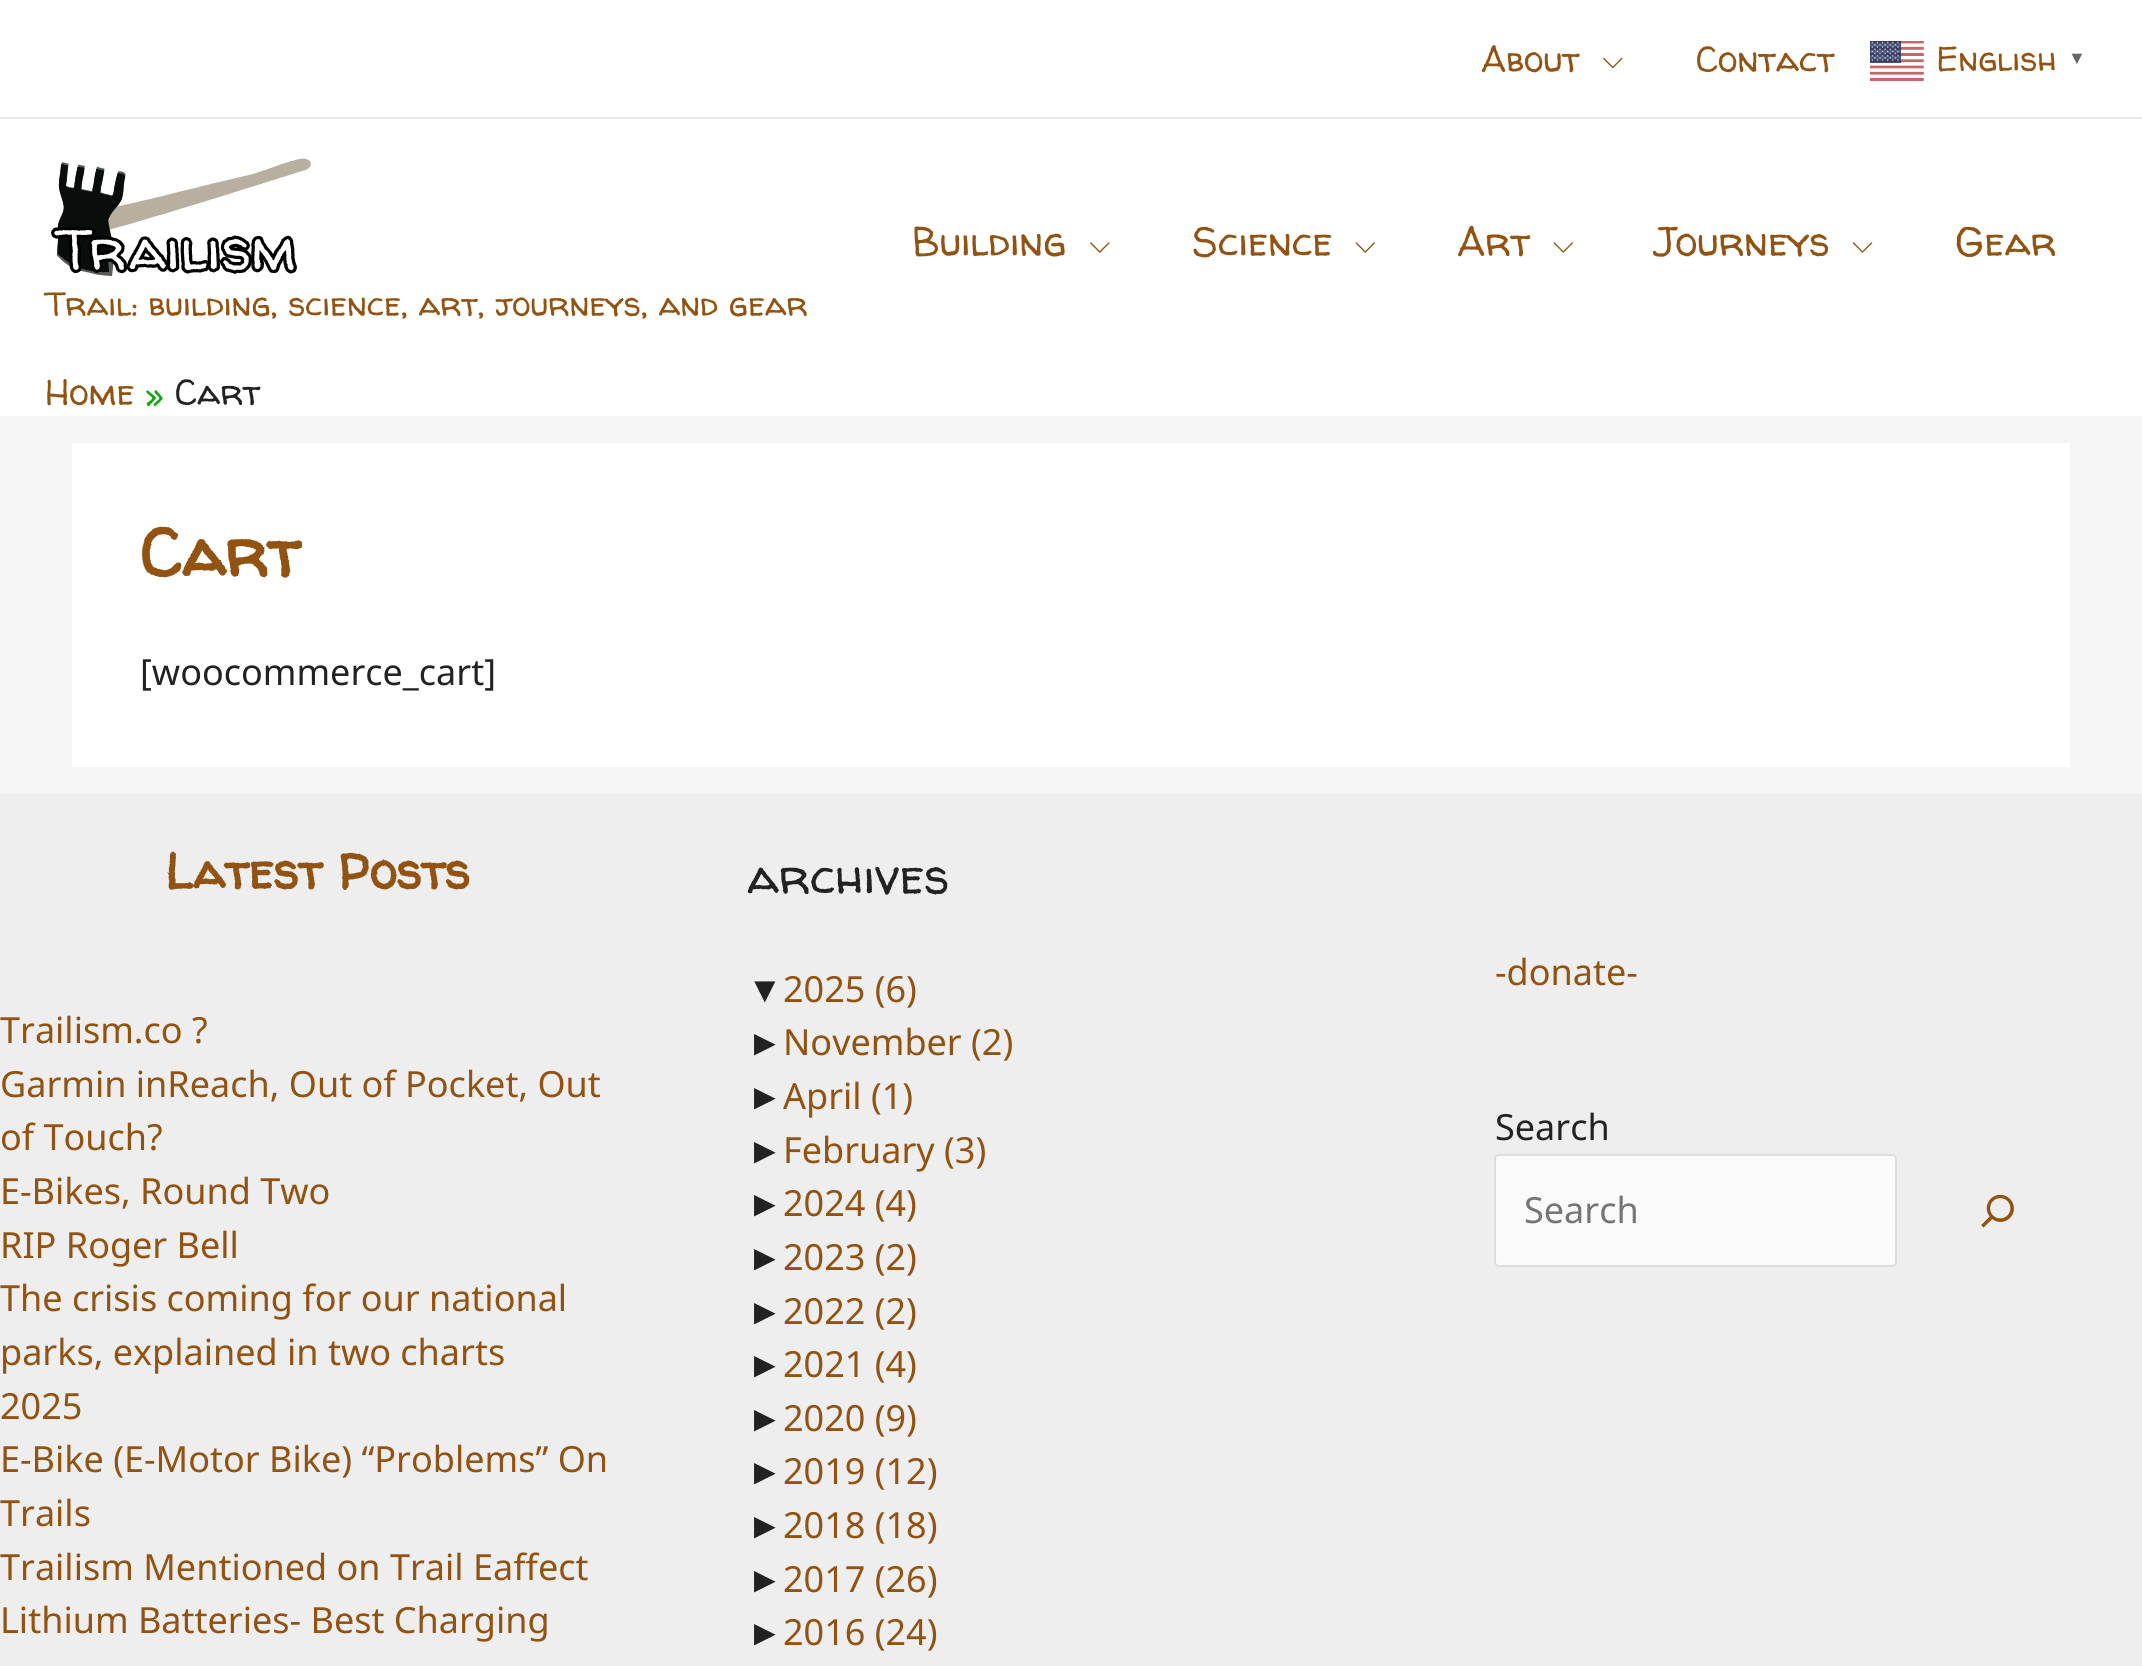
import math
import cairocffi as cairo

surface = cairo.ImageSurface(cairo.FORMAT_RGB24, 2142, 1666)
ctx = cairo.Context(surface)
options = cairo.FontOptions()
options.set_hint_metrics(cairo.HINT_METRICS_OFF)
options.set_hint_style(cairo.HINT_STYLE_NONE)
ctx.set_font_options(options)
ctx.set_miter_limit(4)


def rgb(r, g, b):
    ctx.set_source_rgb(r / 255, g / 255, b / 255)


def face(family, size, italic, bold):
    ctx.select_font_face(family, cairo.FONT_SLANT_ITALIC if italic else cairo.FONT_SLANT_NORMAL, cairo.FONT_WEIGHT_BOLD if bold else cairo.FONT_WEIGHT_NORMAL)
    ctx.set_font_size(size)


def label(x, y, s):
    ctx.move_to(x, y)
    ctx.show_text(s)


def rect(x, y, w, h):
    ctx.rectangle(x, y, w, h)
    ctx.fill()


def rrect(x, y, w, h, r):
    ctx.new_sub_path()
    for i, (u, v) in enumerate([(x + w - r, y + h - r), (x + r, y + h - r), (x + r, y + r), (x + w - r, y + r)]):
        ctx.arc(u, v, r, i * math.pi / 2, (i + 1) * math.pi / 2)
    ctx.close_path()


def image(path, x, y, w, h):
    ctx.save()
    ctx.set_source_surface(cairo.ImageSurface.create_from_png(path), x, y)
    ctx.rectangle(x, y, w, h)
    ctx.fill()
    ctx.restore()


rgb(245, 245, 245)
ctx.paint()
rgb(255, 255, 255)
rect(0, 0, 2142, 117)
rgb(234, 234, 234)
rect(0, 117, 2142, 2)
face('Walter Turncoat', 36, 0, 0)
rgb(146, 82, 18)
label(1481, 72, 'About')
image('image0.png', 1603, 57, 20, 12)
label(1696, 72, 'Contact')
image('image1.png', 1870, 41, 54, 40)
face('Walter Turncoat', 33.75, 0, 0)
label(1936, 71, 'English')
face('Liberation Serif', 18, 0, 1)
rgb(102, 102, 102)
label(2068, 64, '▼')
rgb(255, 255, 255)
rect(0, 119, 2142, 297)
face('Walter Turncoat', 40.5, 0, 0)
rgb(146, 82, 18)
label(912, 256, 'Building')
image('image2.png', 1090, 242, 20, 11)
label(1192, 256, 'Science')
image('image3.png', 1355, 242, 20, 11)
label(1457, 256, 'Art')
image('image3.png', 1553, 242, 20, 11)
label(1655, 256, 'Journeys')
image('image4.png', 1852, 242, 21, 11)
label(1955, 256, 'Gear')
image('image5.png', 51, 158, 260, 118)
face('Walter Turncoat', 33.75, 0, 0)
label(45, 316, 'Trail: building, science, art, journeys, and gear')
face('Walter Turncoat', 36, 0, 0)
label(45, 405, 'Home')
rgb(12, 166, 15)
label(145, 405, '»')
rgb(34, 34, 34)
label(175, 405, 'Cart')
rgb(255, 255, 255)
rect(72, 443, 1998, 324)
face('Walter Turncoat', 67.5, 0, 1)
rgb(146, 82, 18)
label(140, 577, 'Cart')
face('Noto Sans', 36, 0, 0)
rgb(34, 34, 34)
label(140, 685, '[woocommerce_cart]')
rgb(238, 238, 238)
rect(0, 794, 2142, 872)
face('Walter Turncoat', 49.5, 0, 1)
rgb(146, 82, 18)
label(165, 889, 'Latest Posts')
face('Noto Sans', 36, 0, 0)
label(0, 1043, 'Trailism.co ?')
label(0, 1097, 'Garmin inReach, Out of Pocket, Out')
label(0, 1150, 'of Touch?')
label(0, 1204, 'E-Bikes, Round Two')
label(0, 1258, 'RIP Roger Bell')
label(0, 1311, 'The crisis coming for our national')
label(0, 1365, 'parks, explained in two charts')
label(0, 1419, '2025')
label(0, 1472, 'E-Bike (E-Motor Bike) “Problems” On')
label(0, 1526, 'Trails')
label(0, 1580, 'Trailism Mentioned on Trail Eaffect')
label(0, 1633, 'Lithium Batteries- Best Charging')
face('Walter Turncoat', 49.5, 0, 0)
rgb(34, 34, 34)
label(747, 894, 'archives')
face('Liberation Sans', 36, 0, 0)
label(747, 1002, '▼')
face('Noto Sans', 36, 0, 0)
rgb(146, 82, 18)
label(783, 1002, '2025 (6)')
face('Liberation Sans', 36, 0, 0)
rgb(34, 34, 34)
label(747, 1055, '►')
face('Noto Sans', 36, 0, 0)
rgb(146, 82, 18)
label(783, 1055, 'November (2)')
face('Liberation Sans', 36, 0, 0)
rgb(34, 34, 34)
label(747, 1109, '►')
face('Noto Sans', 36, 0, 0)
rgb(146, 82, 18)
label(783, 1109, 'April (1)')
face('Liberation Sans', 36, 0, 0)
rgb(34, 34, 34)
label(747, 1163, '►')
face('Noto Sans', 36, 0, 0)
rgb(146, 82, 18)
label(783, 1163, 'February (3)')
face('Liberation Sans', 36, 0, 0)
rgb(34, 34, 34)
label(747, 1216, '►')
face('Noto Sans', 36, 0, 0)
rgb(146, 82, 18)
label(783, 1216, '2024 (4)')
face('Liberation Sans', 36, 0, 0)
rgb(34, 34, 34)
label(747, 1270, '►')
face('Noto Sans', 36, 0, 0)
rgb(146, 82, 18)
label(783, 1270, '2023 (2)')
face('Liberation Sans', 36, 0, 0)
rgb(34, 34, 34)
label(747, 1324, '►')
face('Noto Sans', 36, 0, 0)
rgb(146, 82, 18)
label(783, 1324, '2022 (2)')
face('Liberation Sans', 36, 0, 0)
rgb(34, 34, 34)
label(747, 1377, '►')
face('Noto Sans', 36, 0, 0)
rgb(146, 82, 18)
label(783, 1377, '2021 (4)')
face('Liberation Sans', 36, 0, 0)
rgb(34, 34, 34)
label(747, 1431, '►')
face('Noto Sans', 36, 0, 0)
rgb(146, 82, 18)
label(783, 1431, '2020 (9)')
face('Liberation Sans', 36, 0, 0)
rgb(34, 34, 34)
label(747, 1484, '►')
face('Noto Sans', 36, 0, 0)
rgb(146, 82, 18)
label(783, 1484, '2019 (12)')
face('Liberation Sans', 36, 0, 0)
rgb(34, 34, 34)
label(747, 1538, '►')
face('Noto Sans', 36, 0, 0)
rgb(146, 82, 18)
label(783, 1538, '2018 (18)')
face('Liberation Sans', 36, 0, 0)
rgb(34, 34, 34)
label(747, 1592, '►')
face('Noto Sans', 36, 0, 0)
rgb(146, 82, 18)
label(783, 1592, '2017 (26)')
face('Liberation Sans', 36, 0, 0)
rgb(34, 34, 34)
label(747, 1645, '►')
face('Noto Sans', 36, 0, 0)
rgb(146, 82, 18)
label(783, 1645, '2016 (24)')
label(1495, 985, '-donate-')
rgb(34, 34, 34)
label(1495, 1140, 'Search')
rgb(250, 250, 250)
rrect(1495, 1155, 401, 111, 4)
ctx.fill_preserve()
rgb(221, 221, 221)
ctx.stroke()
rgb(117, 117, 117)
label(1524, 1223, 'Search')
image('image6.png', 1981, 1194, 33, 34)
surface.write_to_png('render.png')
